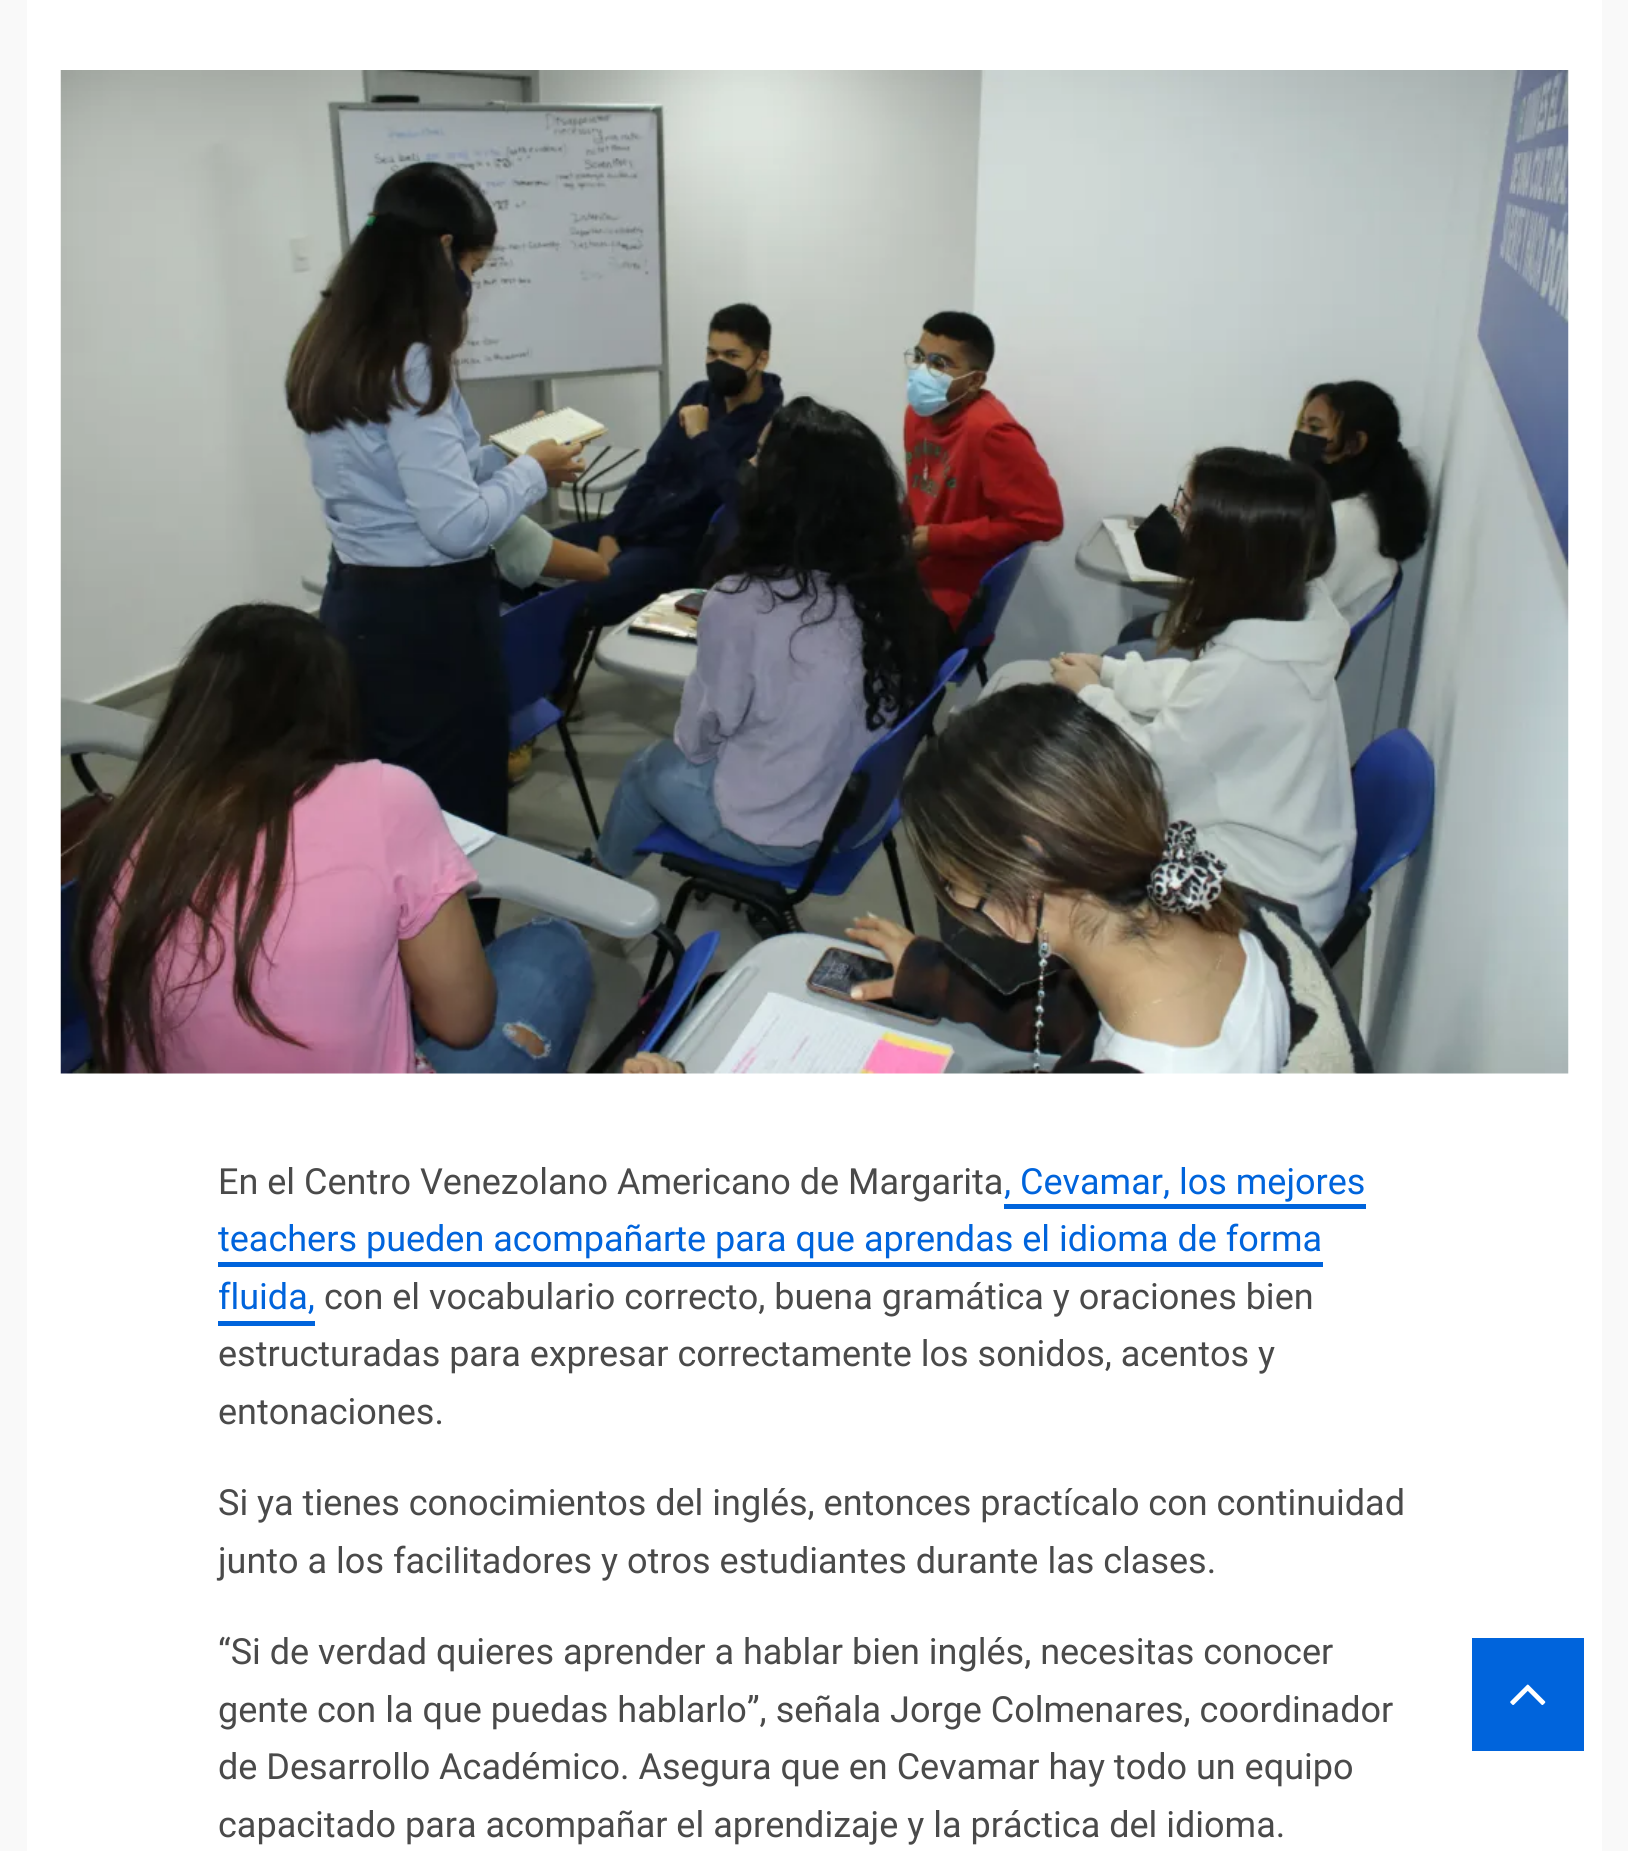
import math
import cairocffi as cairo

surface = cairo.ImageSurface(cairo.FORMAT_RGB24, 1628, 1851)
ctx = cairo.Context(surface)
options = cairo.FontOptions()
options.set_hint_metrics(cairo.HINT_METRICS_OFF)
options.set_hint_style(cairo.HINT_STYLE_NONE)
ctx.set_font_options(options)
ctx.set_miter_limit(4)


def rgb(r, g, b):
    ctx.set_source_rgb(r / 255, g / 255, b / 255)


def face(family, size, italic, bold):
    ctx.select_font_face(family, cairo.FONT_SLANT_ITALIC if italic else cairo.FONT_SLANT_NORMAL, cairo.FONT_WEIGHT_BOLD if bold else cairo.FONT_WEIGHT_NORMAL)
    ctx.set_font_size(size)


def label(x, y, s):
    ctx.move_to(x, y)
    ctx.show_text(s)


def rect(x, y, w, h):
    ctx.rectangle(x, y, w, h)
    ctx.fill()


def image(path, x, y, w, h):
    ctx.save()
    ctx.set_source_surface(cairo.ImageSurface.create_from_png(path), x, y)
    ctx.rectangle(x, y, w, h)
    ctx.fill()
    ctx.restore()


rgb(249, 249, 249)
ctx.paint()
rgb(255, 255, 255)
rect(27, 0, 1575, 1851)
image('image0.png', 60, 70, 1509, 1004)
face('Roboto', 36, 0, 0)
rgb(74, 74, 74)
label(218, 1194, 'En el Centro Venezolano Americano de Margarita')
rgb(0, 100, 220)
label(1004, 1194, ', Cevamar, los mejores')
rect(1004, 1204, 362, 5)
label(218, 1251, 'teachers pueden acompañarte para que aprendas el idioma de forma')
rect(218, 1262, 1105, 5)
label(218, 1309, 'fluida,')
rect(218, 1321, 97, 5)
rgb(74, 74, 74)
label(324, 1309, 'con el vocabulario correcto, buena gramática y oraciones bien')
label(218, 1366, 'estructuradas para expresar correctamente los sonidos, acentos y')
label(218, 1424, 'entonaciones.')
label(218, 1515, 'Si ya tienes conocimientos del inglés, entonces practícalo con continuidad')
label(218, 1573, 'junto a los facilitadores y otros estudiantes durante las clases.')
label(218, 1664, '“Si de verdad quieres aprender a hablar bien inglés, necesitas conocer')
label(218, 1722, 'gente con la que puedas hablarlo”, señala Jorge Colmenares, coordinador')
label(218, 1779, 'de Desarrollo Académico. Asegura que en Cevamar hay todo un equipo')
label(218, 1837, 'capacitado para acompañar el aprendizaje y la práctica del idioma.')
rgb(0, 100, 220)
rect(1472, 1638, 112, 113)
image('image1.png', 1510, 1684, 36, 21)
surface.write_to_png('render.png')
